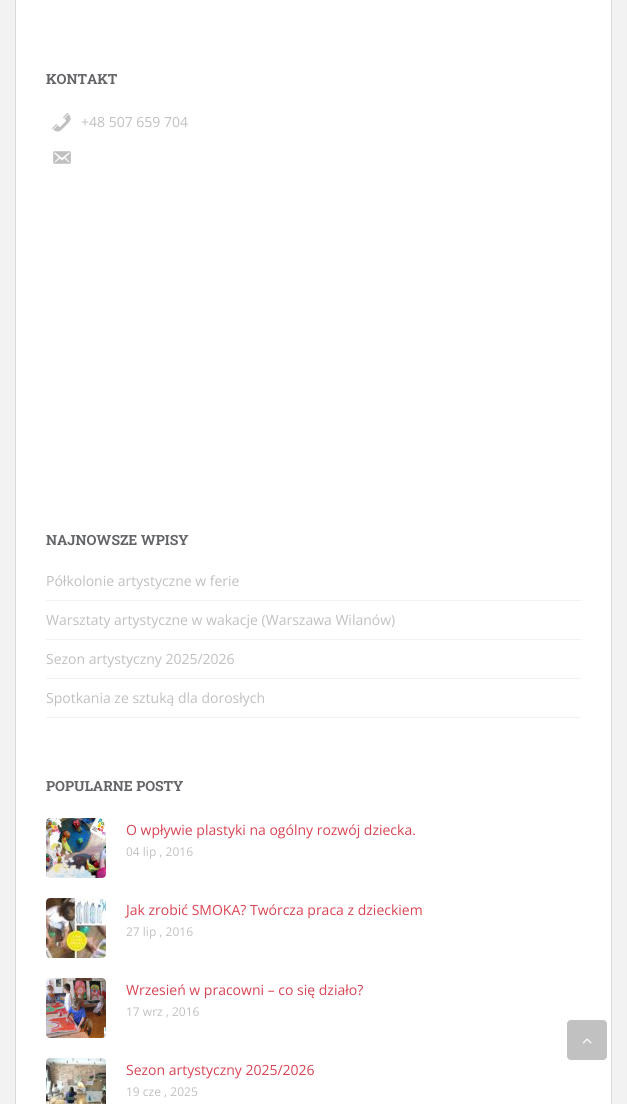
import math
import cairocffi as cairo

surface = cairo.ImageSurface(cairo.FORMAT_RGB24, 627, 1104)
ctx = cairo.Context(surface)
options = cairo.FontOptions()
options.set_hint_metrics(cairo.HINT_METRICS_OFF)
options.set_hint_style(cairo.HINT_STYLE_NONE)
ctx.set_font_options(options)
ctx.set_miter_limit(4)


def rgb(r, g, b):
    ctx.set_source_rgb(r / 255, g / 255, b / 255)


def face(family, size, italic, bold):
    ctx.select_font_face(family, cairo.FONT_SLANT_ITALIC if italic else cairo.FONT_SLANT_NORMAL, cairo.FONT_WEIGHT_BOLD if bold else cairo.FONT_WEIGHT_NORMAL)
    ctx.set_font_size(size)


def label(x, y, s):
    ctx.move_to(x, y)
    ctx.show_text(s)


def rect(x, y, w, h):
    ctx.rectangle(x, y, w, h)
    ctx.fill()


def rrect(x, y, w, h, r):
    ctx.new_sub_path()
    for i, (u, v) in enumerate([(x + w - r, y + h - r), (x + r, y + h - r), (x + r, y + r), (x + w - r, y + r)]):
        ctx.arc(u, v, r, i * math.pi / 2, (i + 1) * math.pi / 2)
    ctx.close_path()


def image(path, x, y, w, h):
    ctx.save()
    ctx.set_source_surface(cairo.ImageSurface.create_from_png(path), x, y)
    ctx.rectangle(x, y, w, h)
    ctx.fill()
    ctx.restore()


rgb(242, 242, 242)
ctx.paint()
rgb(255, 255, 255)
ctx.rectangle(15.5, -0.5, 596, 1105)
ctx.fill_preserve()
rgb(218, 218, 218)
ctx.set_line_width(1)
ctx.stroke()
face('Roboto Slab', 14, 0, 1)
rgb(99, 100, 103)
label(46, 84, 'KONTAKT')
image('image0.png', 52, 113, 19, 19)
face('Open Sans', 14, 0, 0)
rgb(193, 192, 192)
label(81, 127, '+48 507 659 704')
image('image1.png', 53, 151, 18, 13)
face('Roboto Slab', 14, 0, 1)
rgb(99, 100, 103)
label(46, 545, 'NAJNOWSZE WPISY')
rgb(242, 242, 242)
rect(46, 600, 535, 1)
face('Open Sans', 14, 0, 0)
rgb(193, 192, 192)
label(46, 586, 'Półkolonie artystyczne w ferie')
rgb(242, 242, 242)
rect(46, 639, 535, 1)
rgb(193, 192, 192)
label(46, 625, 'Warsztaty artystyczne w wakacje (Warszawa Wilanów)')
rgb(242, 242, 242)
rect(46, 678, 535, 1)
rgb(193, 192, 192)
label(46, 664, 'Sezon artystyczny 2025/2026')
rgb(242, 242, 242)
rect(46, 717, 535, 1)
rgb(193, 192, 192)
label(46, 703, 'Spotkania ze sztuką dla dorosłych')
face('Roboto Slab', 14, 0, 1)
rgb(99, 100, 103)
label(46, 791, 'POPULARNE POSTY')
image('image2.png', 46, 818, 60, 60)
face('Open Sans', 14, 0, 0)
rgb(218, 68, 83)
label(126, 835, 'O wpływie plastyki na ogólny rozwój dziecka.')
face('Open Sans', 12, 0, 0)
rgb(193, 192, 192)
label(126, 856, '04 lip , 2016')
image('image3.png', 46, 898, 60, 60)
face('Open Sans', 14, 0, 0)
rgb(218, 68, 83)
label(126, 915, 'Jak zrobić SMOKA? Twórcza praca z dzieckiem')
face('Open Sans', 12, 0, 0)
rgb(193, 192, 192)
label(126, 936, '27 lip , 2016')
image('image4.png', 46, 978, 60, 60)
face('Open Sans', 14, 0, 0)
rgb(218, 68, 83)
label(126, 995, 'Wrzesień w pracowni – co się działo?')
face('Open Sans', 12, 0, 0)
rgb(193, 192, 192)
label(126, 1016, '17 wrz , 2016')
image('image5.png', 46, 1058, 60, 46)
face('Open Sans', 14, 0, 0)
rgb(218, 68, 83)
label(126, 1075, 'Sezon artystyczny 2025/2026')
face('Open Sans', 12, 0, 0)
rgb(193, 192, 192)
label(126, 1096, '19 cze , 2025')
rgb(193, 193, 193)
rrect(567, 1020, 40, 40, 4)
ctx.fill()
image('image6.png', 582, 1038, 10, 6)
surface.write_to_png('render.png')
